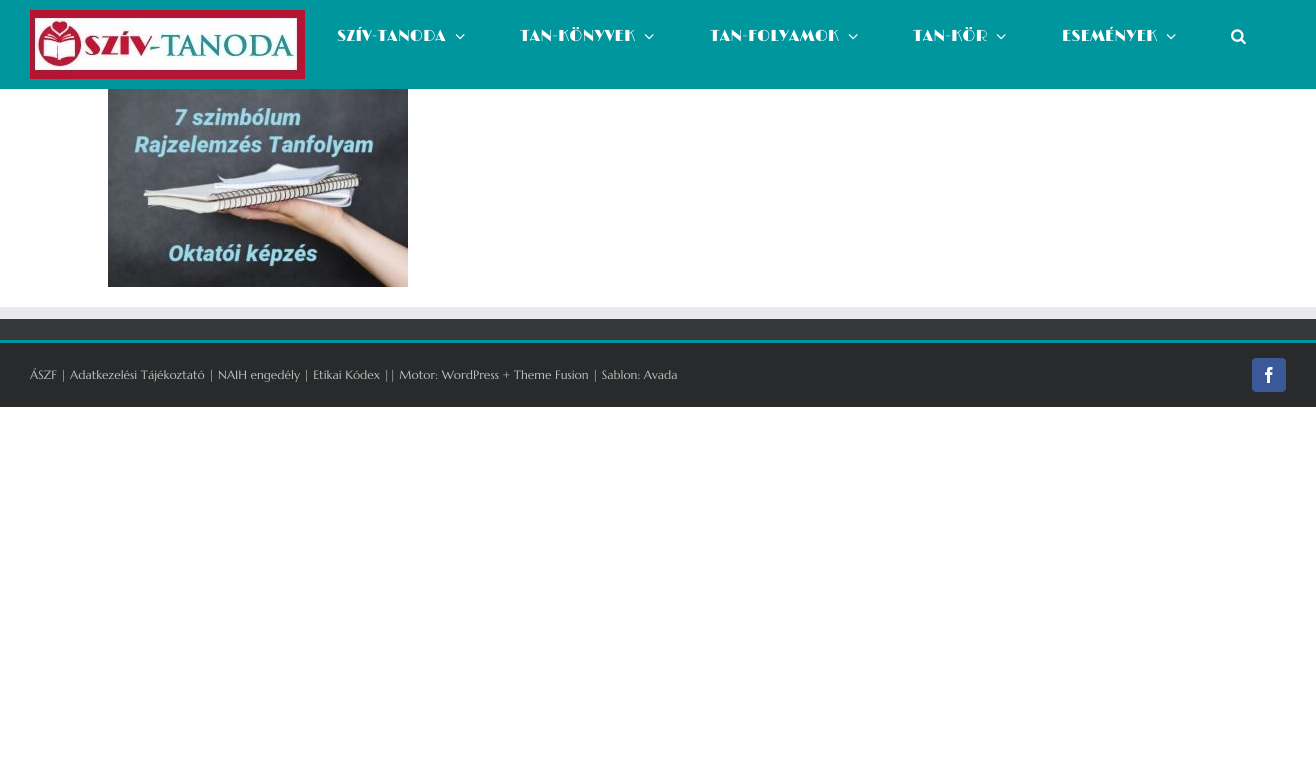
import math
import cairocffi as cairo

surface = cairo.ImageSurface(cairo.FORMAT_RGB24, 1316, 783)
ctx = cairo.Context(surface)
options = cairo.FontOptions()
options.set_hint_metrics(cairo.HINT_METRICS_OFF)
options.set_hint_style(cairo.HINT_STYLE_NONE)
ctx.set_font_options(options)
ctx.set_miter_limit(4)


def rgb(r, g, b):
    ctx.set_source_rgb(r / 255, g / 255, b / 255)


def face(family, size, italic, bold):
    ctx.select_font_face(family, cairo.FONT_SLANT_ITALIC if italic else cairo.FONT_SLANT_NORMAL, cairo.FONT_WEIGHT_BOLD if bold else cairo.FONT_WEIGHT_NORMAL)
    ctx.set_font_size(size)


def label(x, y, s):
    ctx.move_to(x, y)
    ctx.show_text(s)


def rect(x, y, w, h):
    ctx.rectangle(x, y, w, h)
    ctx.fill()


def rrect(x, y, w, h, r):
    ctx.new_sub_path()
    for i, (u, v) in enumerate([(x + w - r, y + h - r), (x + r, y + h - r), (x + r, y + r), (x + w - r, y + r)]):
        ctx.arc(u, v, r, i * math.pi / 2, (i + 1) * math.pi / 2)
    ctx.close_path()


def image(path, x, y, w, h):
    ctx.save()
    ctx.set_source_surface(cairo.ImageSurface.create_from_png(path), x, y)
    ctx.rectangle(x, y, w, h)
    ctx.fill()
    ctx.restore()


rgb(255, 255, 255)
ctx.paint()
rgb(0, 150, 158)
rect(0, 0, 1316, 89)
image('image0.png', 30, 10, 275, 69)
face('Limelight Light', 16, 0, 0)
rgb(255, 255, 255)
label(337, 41, 'SZÍV-TANODA')
image('image1.png', 455, 34, 10, 6)
label(520, 41, 'TAN-KÖNYVEK')
image('image1.png', 644, 34, 10, 6)
label(710, 41, 'TAN-FOLYAMOK')
image('image1.png', 848, 34, 10, 6)
label(913, 41, 'TAN-KÖR')
image('image1.png', 996, 34, 10, 6)
label(1062, 41, 'ESEMÉNYEK')
image('image1.png', 1166, 34, 10, 6)
image('image2.png', 1231, 29, 15, 16)
image('image3.png', 108, 89, 300, 198)
rgb(54, 56, 57)
rect(0, 319, 1316, 21)
rgb(233, 234, 238)
rect(0, 307, 1316, 12)
rgb(40, 42, 43)
rect(0, 343, 1316, 64)
rgb(0, 150, 158)
rect(0, 340, 1316, 3)
face('Marcellus', 12, 0, 0)
rgb(191, 191, 191)
label(30, 379, 'ÁSZF | Adatkezelési Tájékoztató | NAIH engedély | Etikai Kódex || Motor: WordPress + Theme Fusion | Sablon: Avada')
rgb(59, 89, 152)
rrect(1252.5, 358.5, 33, 33, 3.5)
ctx.fill_preserve()
ctx.set_line_width(1)
ctx.stroke()
image('image4.png', 1265, 367, 8, 16)
surface.write_to_png('render.png')
